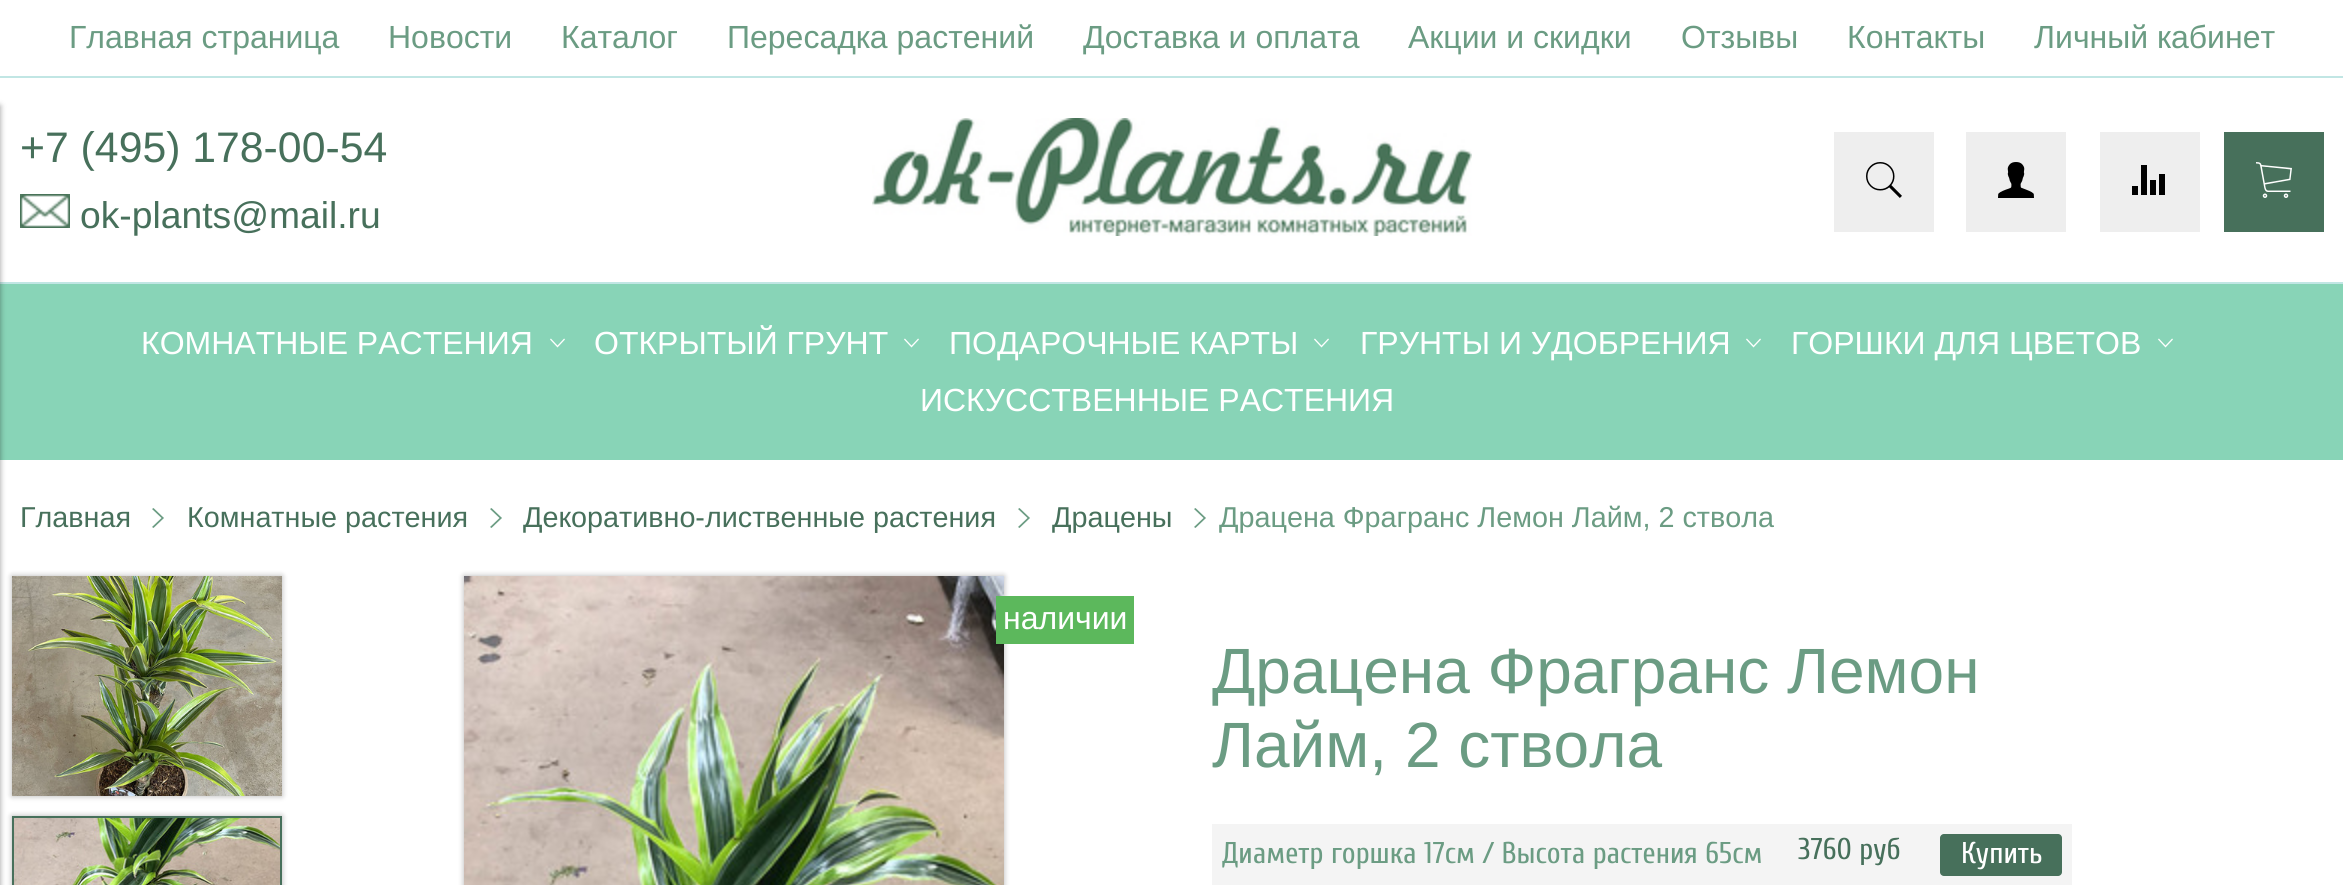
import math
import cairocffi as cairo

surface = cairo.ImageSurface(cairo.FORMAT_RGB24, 2343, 885)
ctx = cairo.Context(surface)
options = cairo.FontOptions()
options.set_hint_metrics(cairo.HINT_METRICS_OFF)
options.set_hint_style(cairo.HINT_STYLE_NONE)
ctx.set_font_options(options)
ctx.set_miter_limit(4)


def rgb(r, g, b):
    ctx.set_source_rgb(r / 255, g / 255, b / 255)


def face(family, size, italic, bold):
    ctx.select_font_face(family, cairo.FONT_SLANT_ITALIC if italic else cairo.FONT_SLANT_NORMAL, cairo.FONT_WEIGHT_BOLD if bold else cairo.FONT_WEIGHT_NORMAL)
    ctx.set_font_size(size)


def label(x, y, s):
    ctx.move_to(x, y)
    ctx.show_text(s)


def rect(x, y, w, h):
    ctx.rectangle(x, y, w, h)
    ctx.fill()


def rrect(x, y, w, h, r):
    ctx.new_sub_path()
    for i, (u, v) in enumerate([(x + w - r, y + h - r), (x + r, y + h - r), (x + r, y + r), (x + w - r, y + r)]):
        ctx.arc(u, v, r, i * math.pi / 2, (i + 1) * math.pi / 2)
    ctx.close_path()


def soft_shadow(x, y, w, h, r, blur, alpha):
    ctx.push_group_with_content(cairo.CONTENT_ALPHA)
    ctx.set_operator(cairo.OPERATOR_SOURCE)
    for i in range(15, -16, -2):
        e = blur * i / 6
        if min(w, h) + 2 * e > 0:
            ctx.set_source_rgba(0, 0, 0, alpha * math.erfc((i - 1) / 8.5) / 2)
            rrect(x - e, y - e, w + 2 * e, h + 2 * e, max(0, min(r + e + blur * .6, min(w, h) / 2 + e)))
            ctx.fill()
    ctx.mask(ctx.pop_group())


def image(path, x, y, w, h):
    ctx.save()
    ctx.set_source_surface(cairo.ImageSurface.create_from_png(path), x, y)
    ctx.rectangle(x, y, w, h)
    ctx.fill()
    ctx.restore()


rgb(255, 255, 255)
ctx.paint()
rgb(193, 230, 228)
rect(0, 282, 2343, 2)
rgb(136, 212, 183)
rect(0, 284, 2343, 176)
rgb(0, 0, 0)
soft_shadow(-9, 106, 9, 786, 0, 3, 0.4)
rgb(193, 230, 228)
rect(0, 76, 2343, 2)
face('Liberation Sans', 32, 0, 0)
rgb(107, 156, 131)
label(69, 48, 'Главная страница')
label(388, 48, 'Новости')
label(561, 48, 'Каталог')
label(727, 48, 'Пересадка растений')
label(1083, 48, 'Доставка и оплата')
label(1408, 48, 'Акции и скидки')
label(1681, 48, 'Отзывы')
label(1847, 48, 'Контакты')
label(2034, 48, 'Личный кабинет')
face('Liberation Sans', 42.75, 0, 0)
rgb(71, 112, 91)
label(20, 162, '+7 (495) 178-00-54')
image('image0.png', 20, 194, 50, 34)
face('Liberation Sans', 37.25, 0, 0)
label(80, 228, 'ok-plants@mail.ru')
image('image1.png', 872, 118, 600, 118)
rgb(238, 238, 238)
rect(1834, 132, 100, 100)
image('image2.png', 1866, 162, 36, 36)
rect(1966, 132, 100, 100)
image('image3.png', 1998, 162, 36, 36)
rect(2100, 132, 100, 100)
image('image4.png', 2132, 165, 33, 30)
rgb(71, 112, 91)
rect(2224, 132, 100, 100)
image('image5.png', 2256, 162, 36, 36)
face('Liberation Sans', 32, 0, 0)
rgb(255, 255, 255)
label(141, 354, 'КОМНАТНЫЕ РАСТЕНИЯ')
image('image6.png', 550, 338, 15, 10)
label(594, 354, 'ОТКРЫТЫЙ ГРУНТ')
image('image6.png', 904, 338, 15, 10)
label(949, 354, 'ПОДАРОЧНЫЕ КАРТЫ')
image('image6.png', 1314, 338, 15, 10)
label(1360, 354, 'ГРУНТЫ И УДОБРЕНИЯ')
image('image6.png', 1746, 338, 15, 10)
label(1791, 354, 'ГОРШКИ ДЛЯ ЦВЕТОВ')
image('image6.png', 2158, 338, 15, 10)
label(920, 411, 'ИСКУССТВЕННЫЕ РАСТЕНИЯ')
face('Liberation Sans', 28.75, 0, 0)
rgb(71, 112, 91)
label(20, 527, 'Главная')
rgb(107, 156, 131)
ctx.new_path()
ctx.move_to(152, 509)
ctx.line_to(153.5, 508)
ctx.line_to(164, 518)
ctx.line_to(153.5, 528)
ctx.line_to(152, 527)
ctx.line_to(161.5, 518)
ctx.close_path()
ctx.fill()
rgb(71, 112, 91)
label(187, 527, 'Комнатные растения')
rgb(107, 156, 131)
ctx.new_path()
ctx.move_to(490, 509)
ctx.line_to(491.5, 508)
ctx.line_to(502, 518)
ctx.line_to(491.5, 528)
ctx.line_to(490, 527)
ctx.line_to(499.5, 518)
ctx.close_path()
ctx.fill()
rgb(71, 112, 91)
label(523, 527, 'Декоративно-лиственные растения')
rgb(107, 156, 131)
ctx.new_path()
ctx.move_to(1018, 509)
ctx.line_to(1019.5, 508)
ctx.line_to(1030, 518)
ctx.line_to(1019.5, 528)
ctx.line_to(1018, 527)
ctx.line_to(1027.5, 518)
ctx.close_path()
ctx.fill()
rgb(71, 112, 91)
label(1052, 527, 'Драцены')
rgb(107, 156, 131)
ctx.new_path()
ctx.move_to(1194, 509)
ctx.line_to(1195.5, 508)
ctx.line_to(1206, 518)
ctx.line_to(1195.5, 528)
ctx.line_to(1194, 527)
ctx.line_to(1203.5, 518)
ctx.close_path()
ctx.fill()
label(1219, 527, 'Драцена Фрагранс Лемон Лайм, 2 ствола')
rgb(0, 0, 0)
soft_shadow(12, 576, 270, 220, 0, 3, 0.3)
image('image7.png', 12, 576, 270, 220)
soft_shadow(12, 816, 270, 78, 0, 3, 0.3)
ctx.rectangle(13, 817, 268, 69)
rgb(71, 112, 91)
ctx.stroke()
image('image8.png', 14, 818, 266, 67)
rgb(0, 0, 0)
soft_shadow(464, 576, 540, 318, 0, 3, 0.3)
image('image9.png', 464, 576, 540, 309)
rgb(92, 184, 92)
rect(996, 596, 138, 48)
face('Liberation Sans', 32, 0, 0)
rgb(255, 255, 255)
label(1003, 629, 'наличии')
face('Liberation Sans', 64, 0, 0)
rgb(107, 156, 131)
label(1212, 693, 'Драцена Фрагранс Лемон')
label(1212, 767, 'Лайм, 2 ствола')
rgb(244, 244, 244)
rect(1212, 824, 860, 61)
face('Cuprum', 30, 0, 0)
rgb(107, 156, 131)
label(1222, 863, 'Диаметр горшка 17см / Высота растения 65см')
rgb(71, 112, 91)
label(1798, 859, '3760 руб')
rrect(1940, 834, 122, 42, 4)
ctx.fill()
rgb(255, 255, 255)
label(1961, 863, 'Купить')
surface.write_to_png('render.png')
